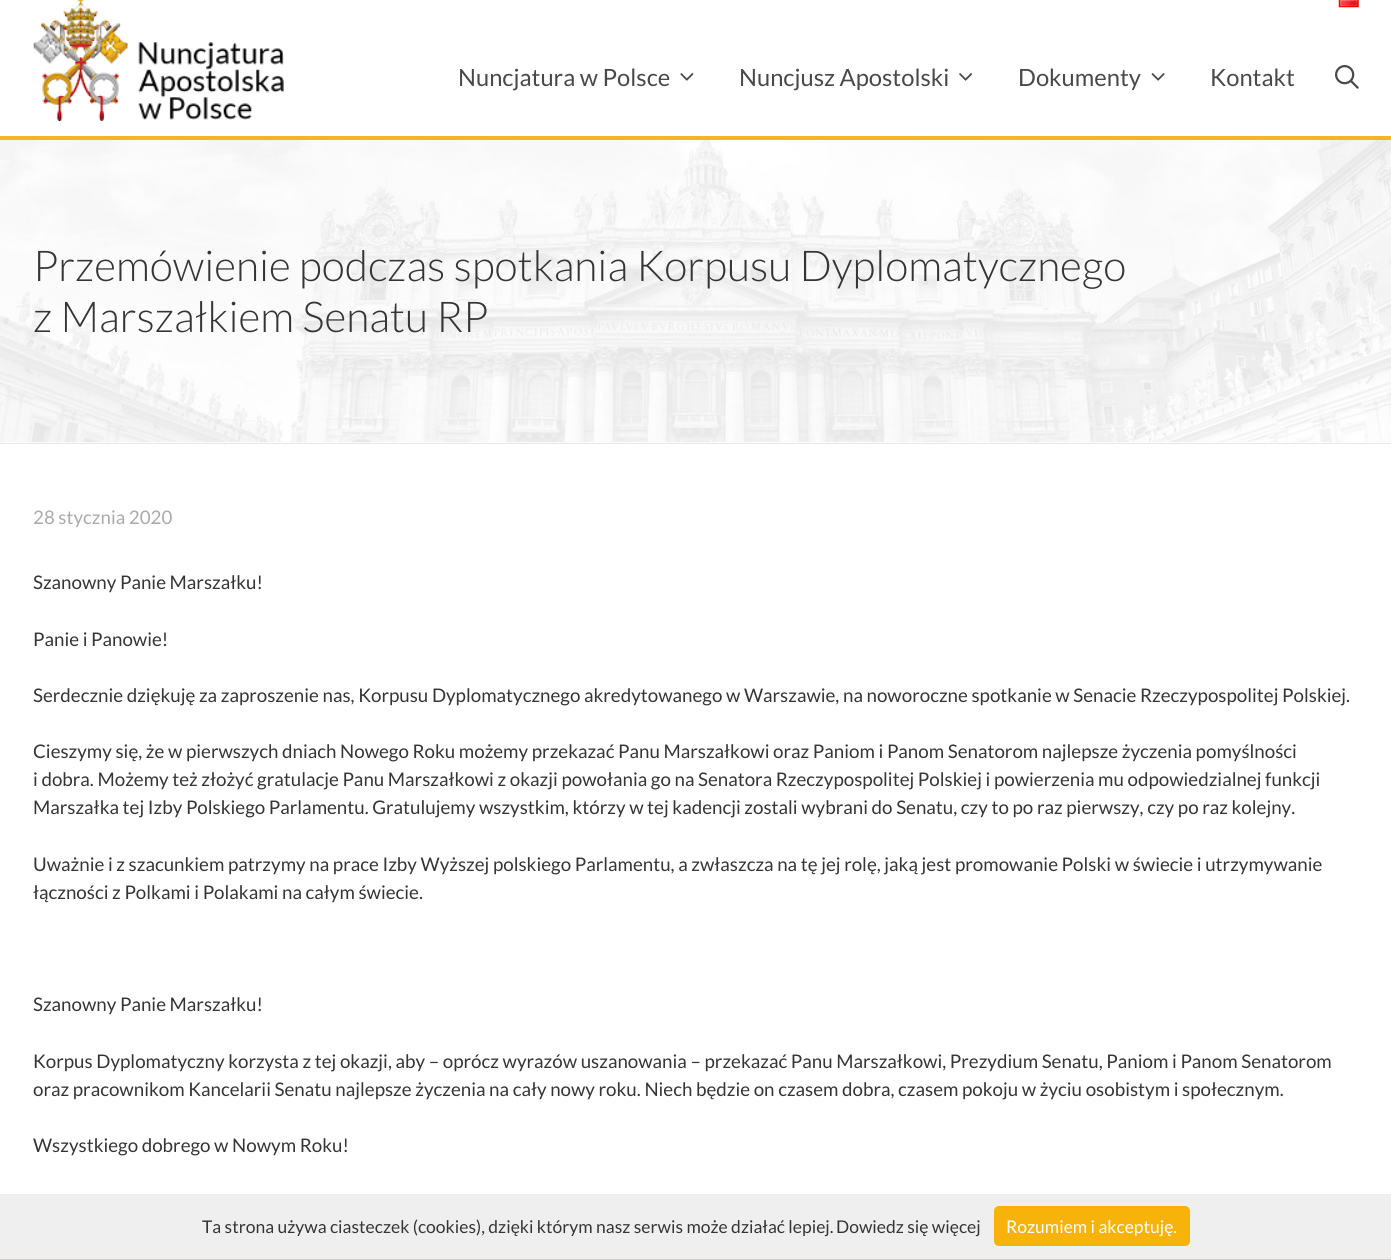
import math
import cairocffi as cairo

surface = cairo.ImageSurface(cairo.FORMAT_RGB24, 1391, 1260)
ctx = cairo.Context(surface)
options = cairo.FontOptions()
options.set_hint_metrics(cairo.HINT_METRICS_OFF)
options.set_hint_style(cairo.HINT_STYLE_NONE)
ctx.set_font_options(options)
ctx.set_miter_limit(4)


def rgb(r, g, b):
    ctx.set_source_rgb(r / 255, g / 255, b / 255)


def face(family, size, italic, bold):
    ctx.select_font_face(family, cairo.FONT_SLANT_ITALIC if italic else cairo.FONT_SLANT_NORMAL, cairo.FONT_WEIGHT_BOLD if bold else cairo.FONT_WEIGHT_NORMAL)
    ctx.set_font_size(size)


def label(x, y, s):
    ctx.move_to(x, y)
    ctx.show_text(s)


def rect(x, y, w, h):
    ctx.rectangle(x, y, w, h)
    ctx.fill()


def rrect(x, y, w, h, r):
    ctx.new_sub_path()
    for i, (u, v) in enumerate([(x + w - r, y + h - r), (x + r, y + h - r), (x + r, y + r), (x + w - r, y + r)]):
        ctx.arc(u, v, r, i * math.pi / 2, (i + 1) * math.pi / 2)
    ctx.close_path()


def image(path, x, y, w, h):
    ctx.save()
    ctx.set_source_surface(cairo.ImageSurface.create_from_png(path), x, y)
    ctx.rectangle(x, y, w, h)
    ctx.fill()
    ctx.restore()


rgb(255, 255, 255)
ctx.paint()
image('image0.png', 1338, 0, 21, 8)
image('image1.png', 33, 0, 251, 121)
face('Lato', 23.75, 0, 0)
rgb(73, 73, 73)
label(458, 86, 'Nuncjatura w Polsce')
image('image2.png', 680, 73, 14, 8)
label(739, 86, 'Nuncjusz Apostolski')
image('image3.png', 959, 73, 14, 8)
label(1018, 86, 'Dokumenty')
image('image4.png', 1151, 73, 14, 8)
label(1210, 86, 'Kontakt')
image('image5.png', 1335, 65, 24, 24)
image('image6.png', 0, 140, 1391, 303)
rgb(247, 179, 40)
rect(0, 136, 1391, 4)
rgb(232, 232, 232)
rect(0, 443, 1391, 1)
face('Lato Light', 42.5, 0, 0)
rgb(53, 53, 53)
label(33, 281, 'Przemówienie podczas spotkania Korpusu Dyplomatycznego')
label(33, 332, 'z Marszałkiem Senatu RP')
face('Lato', 18.75, 0, 0)
rgb(170, 170, 170)
label(33, 524, '28 stycznia 2020')
rgb(53, 53, 53)
label(33, 589, 'Szanowny Panie Marszałku!')
label(33, 646, 'Panie i Panowie!')
label(33, 702, 'Serdecznie dziękuję za zaproszenie nas, Korpusu Dyplomatycznego akredytowanego w Warszawie, na noworoczne spotkanie w Senacie Rzeczypospolitej Polskiej.')
label(33, 758, 'Cieszymy się, że w pierwszych dniach Nowego Roku możemy przekazać Panu Marszałkowi oraz Paniom i Panom Senatorom najlepsze życzenia pomyślności')
label(33, 786, 'i dobra. Możemy też złożyć gratulacje Panu Marszałkowi z okazji powołania go na Senatora Rzeczypospolitej Polskiej i powierzenia mu odpowiedzialnej funkcji')
label(33, 814, 'Marszałka tej Izby Polskiego Parlamentu. Gratulujemy wszystkim, którzy w tej kadencji zostali wybrani do Senatu, czy to po raz pierwszy, czy po raz kolejny.')
label(33, 871, 'Uważnie i z szacunkiem patrzymy na prace Izby Wyższej polskiego Parlamentu, a zwłaszcza na tę jej rolę, jaką jest promowanie Polski w świecie i utrzymywanie')
label(33, 899, 'łączności z Polkami i Polakami na całym świecie.')
label(33, 1011, 'Szanowny Panie Marszałku!')
label(33, 1068, 'Korpus Dyplomatyczny korzysta z tej okazji, aby – oprócz wyrazów uszanowania – przekazać Panu Marszałkowi, Prezydium Senatu, Paniom i Panom Senatorom')
label(33, 1096, 'oraz pracownikom Kancelarii Senatu najlepsze życzenia na cały nowy roku. Niech będzie on czasem dobra, czasem pokoju w życiu osobistym i społecznym.')
label(33, 1152, 'Wszystkiego dobrego w Nowym Roku!')
rgb(239, 239, 239)
rect(0, 1194, 1391, 65)
rgb(211, 208, 208)
rect(0, 1259, 1391, 1)
face('Lato', 17.5, 0, 0)
rgb(53, 53, 53)
label(202, 1233, 'Ta strona używa ciasteczek (cookies), dzięki którym nasz serwis może działać lepiej.')
label(836, 1233, 'Dowiedz się więcej')
rgb(247, 179, 10)
rrect(994, 1206, 196, 40, 5)
ctx.fill()
rgb(255, 255, 255)
label(1006, 1233, 'Rozumiem i akceptuję.')
surface.write_to_png('render.png')
